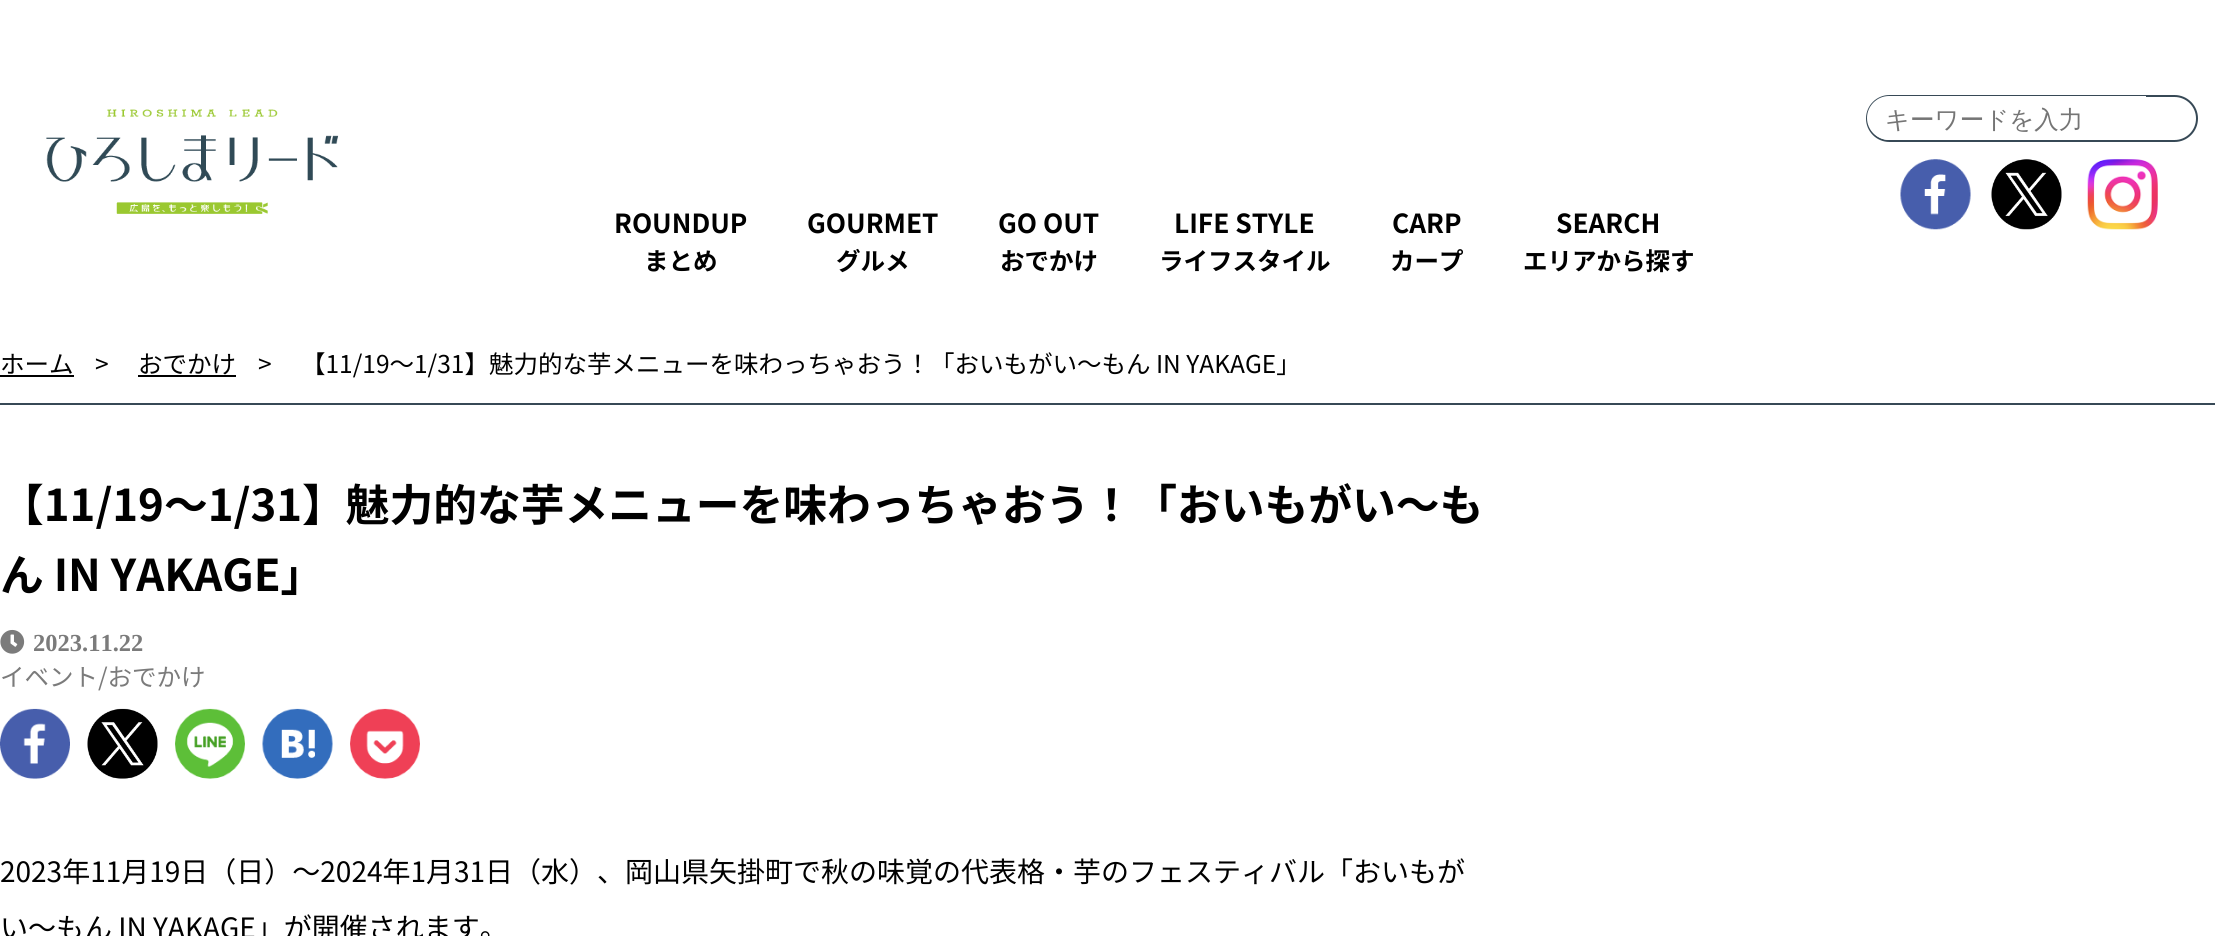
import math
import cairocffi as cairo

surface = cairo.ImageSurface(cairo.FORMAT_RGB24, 2215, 936)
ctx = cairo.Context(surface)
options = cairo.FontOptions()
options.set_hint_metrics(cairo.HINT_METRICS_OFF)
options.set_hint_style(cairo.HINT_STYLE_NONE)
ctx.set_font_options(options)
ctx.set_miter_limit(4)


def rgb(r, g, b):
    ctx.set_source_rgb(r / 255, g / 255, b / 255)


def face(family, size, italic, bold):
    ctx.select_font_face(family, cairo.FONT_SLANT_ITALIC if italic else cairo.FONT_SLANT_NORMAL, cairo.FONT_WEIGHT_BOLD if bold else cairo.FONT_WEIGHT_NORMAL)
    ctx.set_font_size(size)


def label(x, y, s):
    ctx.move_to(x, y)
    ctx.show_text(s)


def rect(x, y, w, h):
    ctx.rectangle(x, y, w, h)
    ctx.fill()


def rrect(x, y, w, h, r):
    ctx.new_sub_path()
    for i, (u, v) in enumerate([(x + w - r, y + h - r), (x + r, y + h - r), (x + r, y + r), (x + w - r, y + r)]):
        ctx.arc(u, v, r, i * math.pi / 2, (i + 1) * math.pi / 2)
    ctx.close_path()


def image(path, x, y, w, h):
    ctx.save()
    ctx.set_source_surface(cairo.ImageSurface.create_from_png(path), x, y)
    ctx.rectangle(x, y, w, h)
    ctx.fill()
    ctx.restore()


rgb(255, 255, 255)
ctx.paint()
image('image0.png', 46, 109, 293, 105)
rrect(1867, 96, 330, 45, 22.5)
rgb(55, 73, 86)
ctx.stroke()
rgb(255, 255, 255)
ctx.new_path()
ctx.move_to(1889, 96)
ctx.line_to(2146, 96)
ctx.line_to(2146, 140)
ctx.line_to(1889, 140)
ctx.curve_to(1877, 140, 1867, 130, 1867, 118)
ctx.curve_to(1867, 106, 1877, 96, 1889, 96)
ctx.close_path()
ctx.fill()
face('WenQuanYi Zen Hei Medium', 24.5, 0, 0)
rgb(117, 117, 117)
label(1885, 128, 'キーワードを入力')
image('image1.png', 1900, 159, 71, 71)
image('image2.png', 1991, 159, 71, 71)
image('image3.png', 2087, 159, 71, 71)
face('Noto Sans JP', 26.25, 0, 1)
rgb(0, 0, 0)
label(614, 233, 'ROUNDUP')
face('Noto Sans JP', 24.5, 0, 1)
label(644, 270, 'まとめ')
face('Noto Sans JP', 26.25, 0, 1)
label(807, 233, 'GOURMET')
face('Noto Sans JP', 24.5, 0, 1)
label(836, 270, 'グルメ')
face('Noto Sans JP', 26.25, 0, 1)
label(998, 233, 'GO OUT')
face('Noto Sans JP', 24.5, 0, 1)
label(1000, 270, 'おでかけ')
face('Noto Sans JP', 26.25, 0, 1)
label(1174, 233, 'LIFE STYLE')
face('Noto Sans JP', 24.5, 0, 1)
label(1159, 270, 'ライフスタイル')
face('Noto Sans JP', 26.25, 0, 1)
label(1392, 233, 'CARP')
face('Noto Sans JP', 24.5, 0, 1)
label(1390, 270, 'カープ')
face('Noto Sans JP', 26.25, 0, 1)
label(1556, 233, 'SEARCH')
face('Noto Sans JP', 24.5, 0, 1)
label(1523, 270, 'エリアから探す')
face('Noto Sans JP', 24.5, 0, 0)
label(0, 373, 'ホーム')
rect(0, 375, 74, 2)
label(95, 373, '>')
label(138, 373, 'おでかけ')
rect(138, 375, 98, 2)
label(258, 373, '>')
label(301, 373, '【11/19〜1/31】魅力的な芋メニューを味わっちゃおう！「おいもがい〜もん IN YAKAGE」')
rgb(55, 73, 86)
rect(0, 403, 2215, 2)
face('Noto Sans JP', 43.75, 0, 1)
rgb(0, 0, 0)
label(0, 521, '【11/19〜1/31】魅力的な芋メニューを味わっちゃおう！「おいもがい〜も')
label(0, 591, 'ん IN YAKAGE」')
image('image4.png', 0, 629, 25, 25)
face('Liberation Serif', 24.5, 0, 1)
rgb(123, 123, 123)
label(33, 651, '2023.11.22')
face('Noto Sans JP', 24.5, 0, 0)
label(0, 686, 'イベント/おでかけ')
image('image5.png', 0, 708, 70, 71)
image('image6.png', 87, 708, 71, 71)
image('image7.png', 175, 708, 70, 71)
image('image8.png', 262, 708, 71, 71)
image('image9.png', 350, 708, 70, 71)
face('Noto Sans JP', 28, 0, 0)
rgb(0, 0, 0)
label(0, 882, '2023年11月19日（日）〜2024年1月31日（水）、岡山県矢掛町で秋の味覚の代表格・芋のフェスティバル「おいもが')
label(0, 938, 'い〜もん IN YAKAGE」が開催されます。')
surface.write_to_png('render.png')
